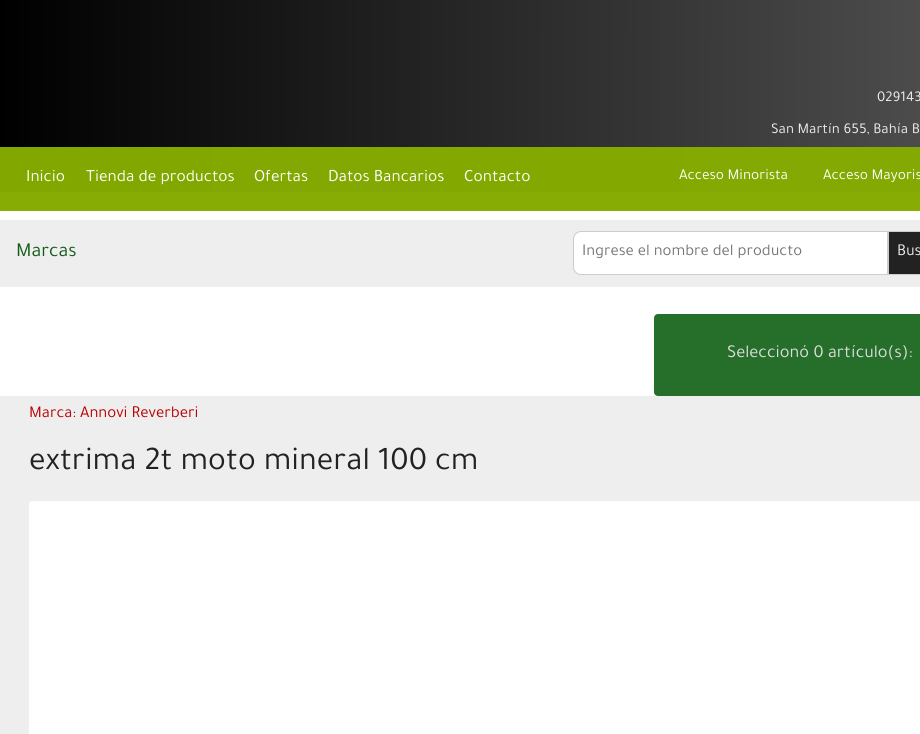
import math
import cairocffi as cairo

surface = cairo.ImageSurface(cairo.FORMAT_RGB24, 920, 734)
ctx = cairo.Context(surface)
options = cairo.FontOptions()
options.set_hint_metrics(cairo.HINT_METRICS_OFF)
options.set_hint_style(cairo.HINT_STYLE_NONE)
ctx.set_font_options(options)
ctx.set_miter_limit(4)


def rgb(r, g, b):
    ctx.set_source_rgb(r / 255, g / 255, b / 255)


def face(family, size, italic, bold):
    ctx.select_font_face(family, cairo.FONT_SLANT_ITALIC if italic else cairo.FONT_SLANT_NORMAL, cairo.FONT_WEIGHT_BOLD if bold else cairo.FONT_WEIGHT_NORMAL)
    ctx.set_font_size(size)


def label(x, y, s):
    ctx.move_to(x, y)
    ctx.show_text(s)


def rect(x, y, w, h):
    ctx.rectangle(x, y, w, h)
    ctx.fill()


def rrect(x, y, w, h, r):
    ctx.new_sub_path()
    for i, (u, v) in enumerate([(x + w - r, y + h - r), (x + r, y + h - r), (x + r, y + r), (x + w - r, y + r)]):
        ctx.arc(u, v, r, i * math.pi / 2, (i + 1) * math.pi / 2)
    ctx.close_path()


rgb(255, 255, 255)
ctx.paint()
gradient = cairo.LinearGradient(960, 106, 0, 105)
gradient.add_color_stop_rgba(0, 0.31, 0.31, 0.31, 1)
gradient.add_color_stop_rgba(1, 0, 0, 0, 1)
ctx.set_source(gradient)
rect(0, 0, 920, 147)
gradient = cairo.LinearGradient(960, 106, 0, 105)
gradient.add_color_stop_rgba(0, 0.518, 0.663, 0.008, 1)
gradient.add_color_stop_rgba(1, 0.51, 0.659, 0, 1)
ctx.set_source(gradient)
rect(0, 147, 920, 45)
face('Tajawal', 15, 0, 0)
rgb(238, 238, 238)
label(877, 101, '029143')
label(771, 133, 'San Martín 655, Bahía B')
face('Tajawal', 17.25, 0, 0)
rgb(255, 255, 255)
label(26, 181, 'Inicio')
label(86, 181, 'Tienda de productos')
label(254, 181, 'Ofertas')
label(328, 181, 'Datos Bancarios')
label(464, 181, 'Contacto')
face('Tajawal', 15.25, 0, 0)
label(679, 179, 'Acceso Minorista')
label(823, 179, 'Acceso Mayoris')
rgb(135, 173, 5)
rect(0, 192, 920, 19)
rgb(238, 238, 238)
rect(0, 220, 920, 67)
face('Tajawal', 20, 0, 0)
rgb(18, 91, 22)
label(16, 256, 'Marcas')
rgb(255, 255, 255)
ctx.new_path()
ctx.move_to(581, 231.5)
ctx.line_to(887.5, 231.5)
ctx.line_to(887.5, 274.5)
ctx.line_to(581, 274.5)
ctx.curve_to(577, 274.5, 573.5, 271, 573.5, 267)
ctx.line_to(573.5, 239)
ctx.curve_to(573.5, 235, 577, 231.5, 581, 231.5)
ctx.close_path()
ctx.fill_preserve()
rgb(204, 204, 204)
ctx.set_line_width(1)
ctx.stroke()
face('Tajawal', 16.6, 0, 0)
rgb(117, 117, 117)
label(582, 255, 'Ingrese el nombre del producto')
rgb(34, 34, 34)
ctx.rectangle(888.5, 231.5, 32, 43)
ctx.fill_preserve()
rgb(204, 204, 204)
ctx.stroke()
rgb(238, 238, 238)
label(897, 255, 'Bus')
rgb(38, 111, 42)
rrect(654, 314, 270, 82, 4)
ctx.fill()
face('Tajawal', 18.25, 0, 0)
rgb(221, 221, 221)
label(727, 357, 'Seleccionó 0 artículo(s):')
rgb(238, 238, 238)
rect(0, 396, 920, 338)
face('Tajawal', 16.6, 0, 0)
rgb(186, 0, 0)
label(29, 417, 'Marca:')
face('Tajawal', 16.75, 0, 0)
label(80, 417, 'Annovi Reverberi')
face('Tajawal', 33.25, 0, 0)
rgb(34, 34, 34)
label(29, 469, 'extrima 2t moto mineral 100 cm')
rgb(255, 255, 255)
rrect(29, 501, 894, 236, 3)
ctx.fill()
surface.write_to_png('render.png')
